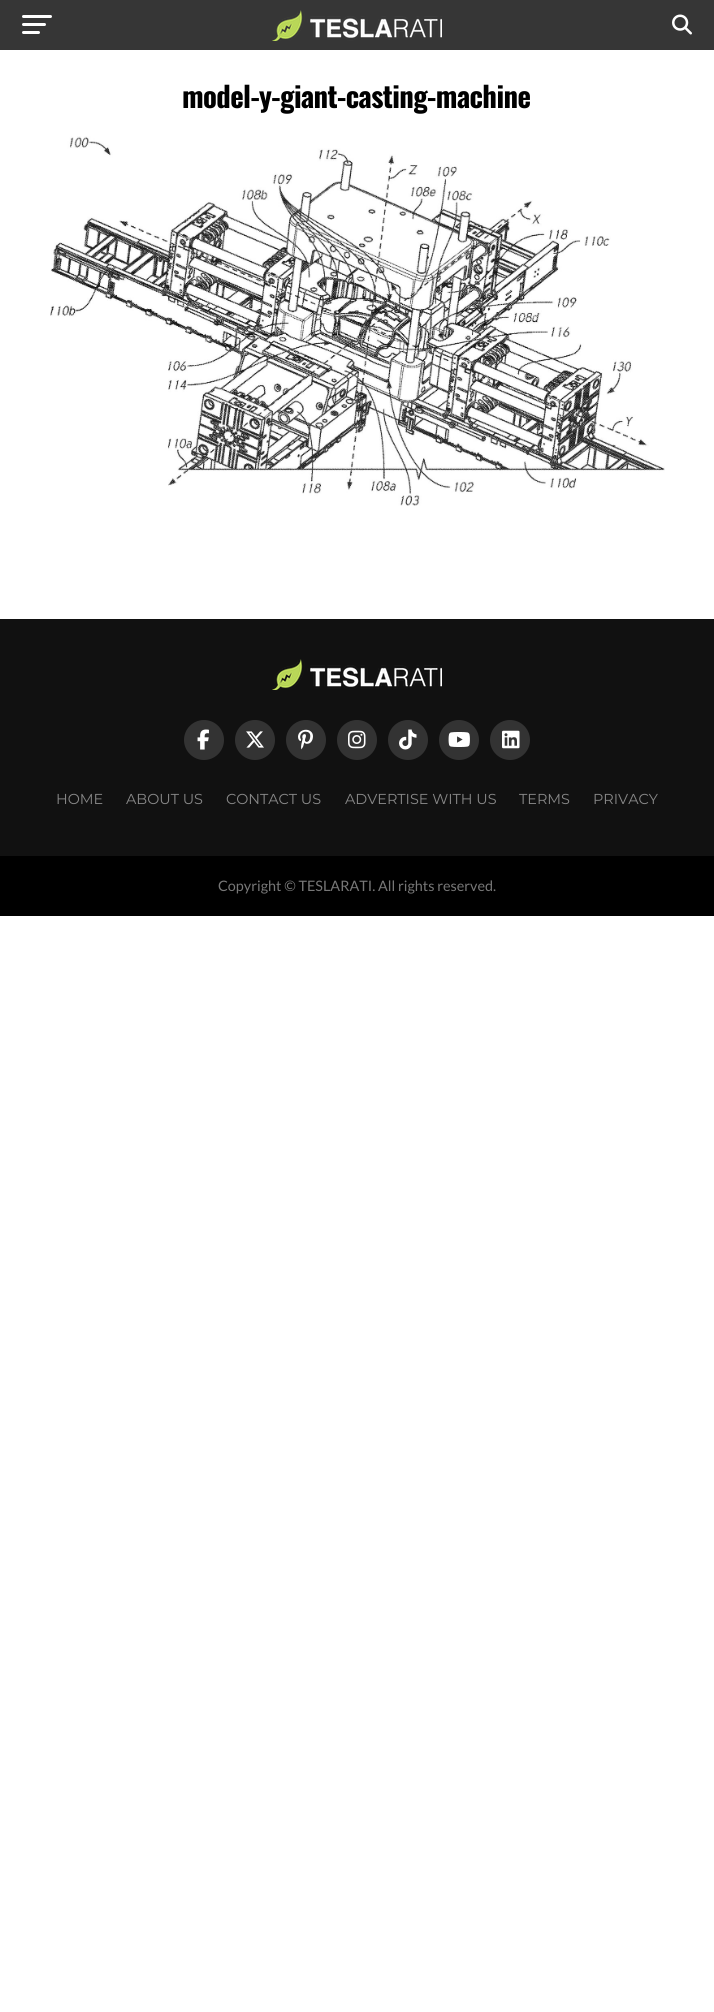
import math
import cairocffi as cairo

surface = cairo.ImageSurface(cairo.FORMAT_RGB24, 714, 2012)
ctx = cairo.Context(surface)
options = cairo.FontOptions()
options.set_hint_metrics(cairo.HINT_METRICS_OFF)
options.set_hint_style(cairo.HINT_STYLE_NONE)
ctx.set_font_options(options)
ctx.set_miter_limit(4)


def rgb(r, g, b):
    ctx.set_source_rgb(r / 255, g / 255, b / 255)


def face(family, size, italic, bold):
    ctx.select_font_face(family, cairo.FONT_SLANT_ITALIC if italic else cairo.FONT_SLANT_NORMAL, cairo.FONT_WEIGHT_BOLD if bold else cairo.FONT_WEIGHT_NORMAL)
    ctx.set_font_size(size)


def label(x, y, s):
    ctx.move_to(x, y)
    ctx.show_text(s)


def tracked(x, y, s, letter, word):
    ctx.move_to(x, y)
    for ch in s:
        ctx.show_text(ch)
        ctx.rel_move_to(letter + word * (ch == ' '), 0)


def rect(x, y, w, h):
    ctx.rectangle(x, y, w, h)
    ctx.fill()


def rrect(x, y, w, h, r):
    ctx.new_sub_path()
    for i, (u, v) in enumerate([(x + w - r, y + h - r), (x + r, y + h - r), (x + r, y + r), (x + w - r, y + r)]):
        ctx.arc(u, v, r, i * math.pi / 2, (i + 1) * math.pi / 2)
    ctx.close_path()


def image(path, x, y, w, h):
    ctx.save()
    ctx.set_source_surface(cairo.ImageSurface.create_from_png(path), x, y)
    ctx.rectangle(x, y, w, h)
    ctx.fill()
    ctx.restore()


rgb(255, 255, 255)
ctx.paint()
rgb(54, 54, 54)
rect(0, 0, 714, 50)
rgb(255, 255, 255)
rrect(22, 15, 30, 3, 1.5)
ctx.fill()
rrect(22, 23, 24, 3, 1.5)
ctx.fill()
rrect(22, 31, 18, 3, 1.5)
ctx.fill()
image('image0.png', 272, 10, 170, 31)
image('image1.png', 672, 14, 20, 21)
face('Oswald', 28.75, 0, 1)
rgb(0, 0, 0)
tracked(182, 108, 'model-y-giant-casting-machine', -0.6, 0)
image('image2.png', 50, 136, 615, 370)
rgb(17, 17, 17)
rect(0, 619, 714, 237)
image('image3.png', 272, 659, 170, 31)
rgb(51, 51, 51)
ctx.arc(204, 740, 20, 0, 2 * math.pi)
ctx.fill()
image('image4.png', 197, 729, 12, 21)
ctx.arc(255, 740, 20, 0, 2 * math.pi)
ctx.fill()
image('image5.png', 246, 731, 18, 17)
ctx.arc(306, 740, 20, 0, 2 * math.pi)
ctx.fill()
image('image6.png', 298, 729, 15, 21)
ctx.arc(357, 740, 20, 0, 2 * math.pi)
ctx.fill()
image('image7.png', 348, 730, 18, 19)
ctx.arc(408, 740, 20, 0, 2 * math.pi)
ctx.fill()
image('image8.png', 399, 729, 18, 21)
ctx.arc(459, 740, 20, 0, 2 * math.pi)
ctx.fill()
image('image9.png', 448, 732, 22, 15)
ctx.arc(510, 740, 20, 0, 2 * math.pi)
ctx.fill()
image('image10.png', 502, 730, 18, 19)
face('Montserrat', 14.4, 0, 0)
rgb(136, 136, 136)
label(56, 804, 'HOME')
label(126, 804, 'ABOUT US')
label(226, 804, 'CONTACT US')
label(345, 804, 'ADVERTISE WITH US')
label(519, 804, 'TERMS')
label(593, 804, 'PRIVACY')
rgb(0, 0, 0)
rect(0, 856, 714, 60)
face('Lato', 14.4, 0, 0)
rgb(119, 119, 119)
label(218, 891, 'Copyright © TESLARATI. All rights reserved.')
surface.write_to_png('render.png')
